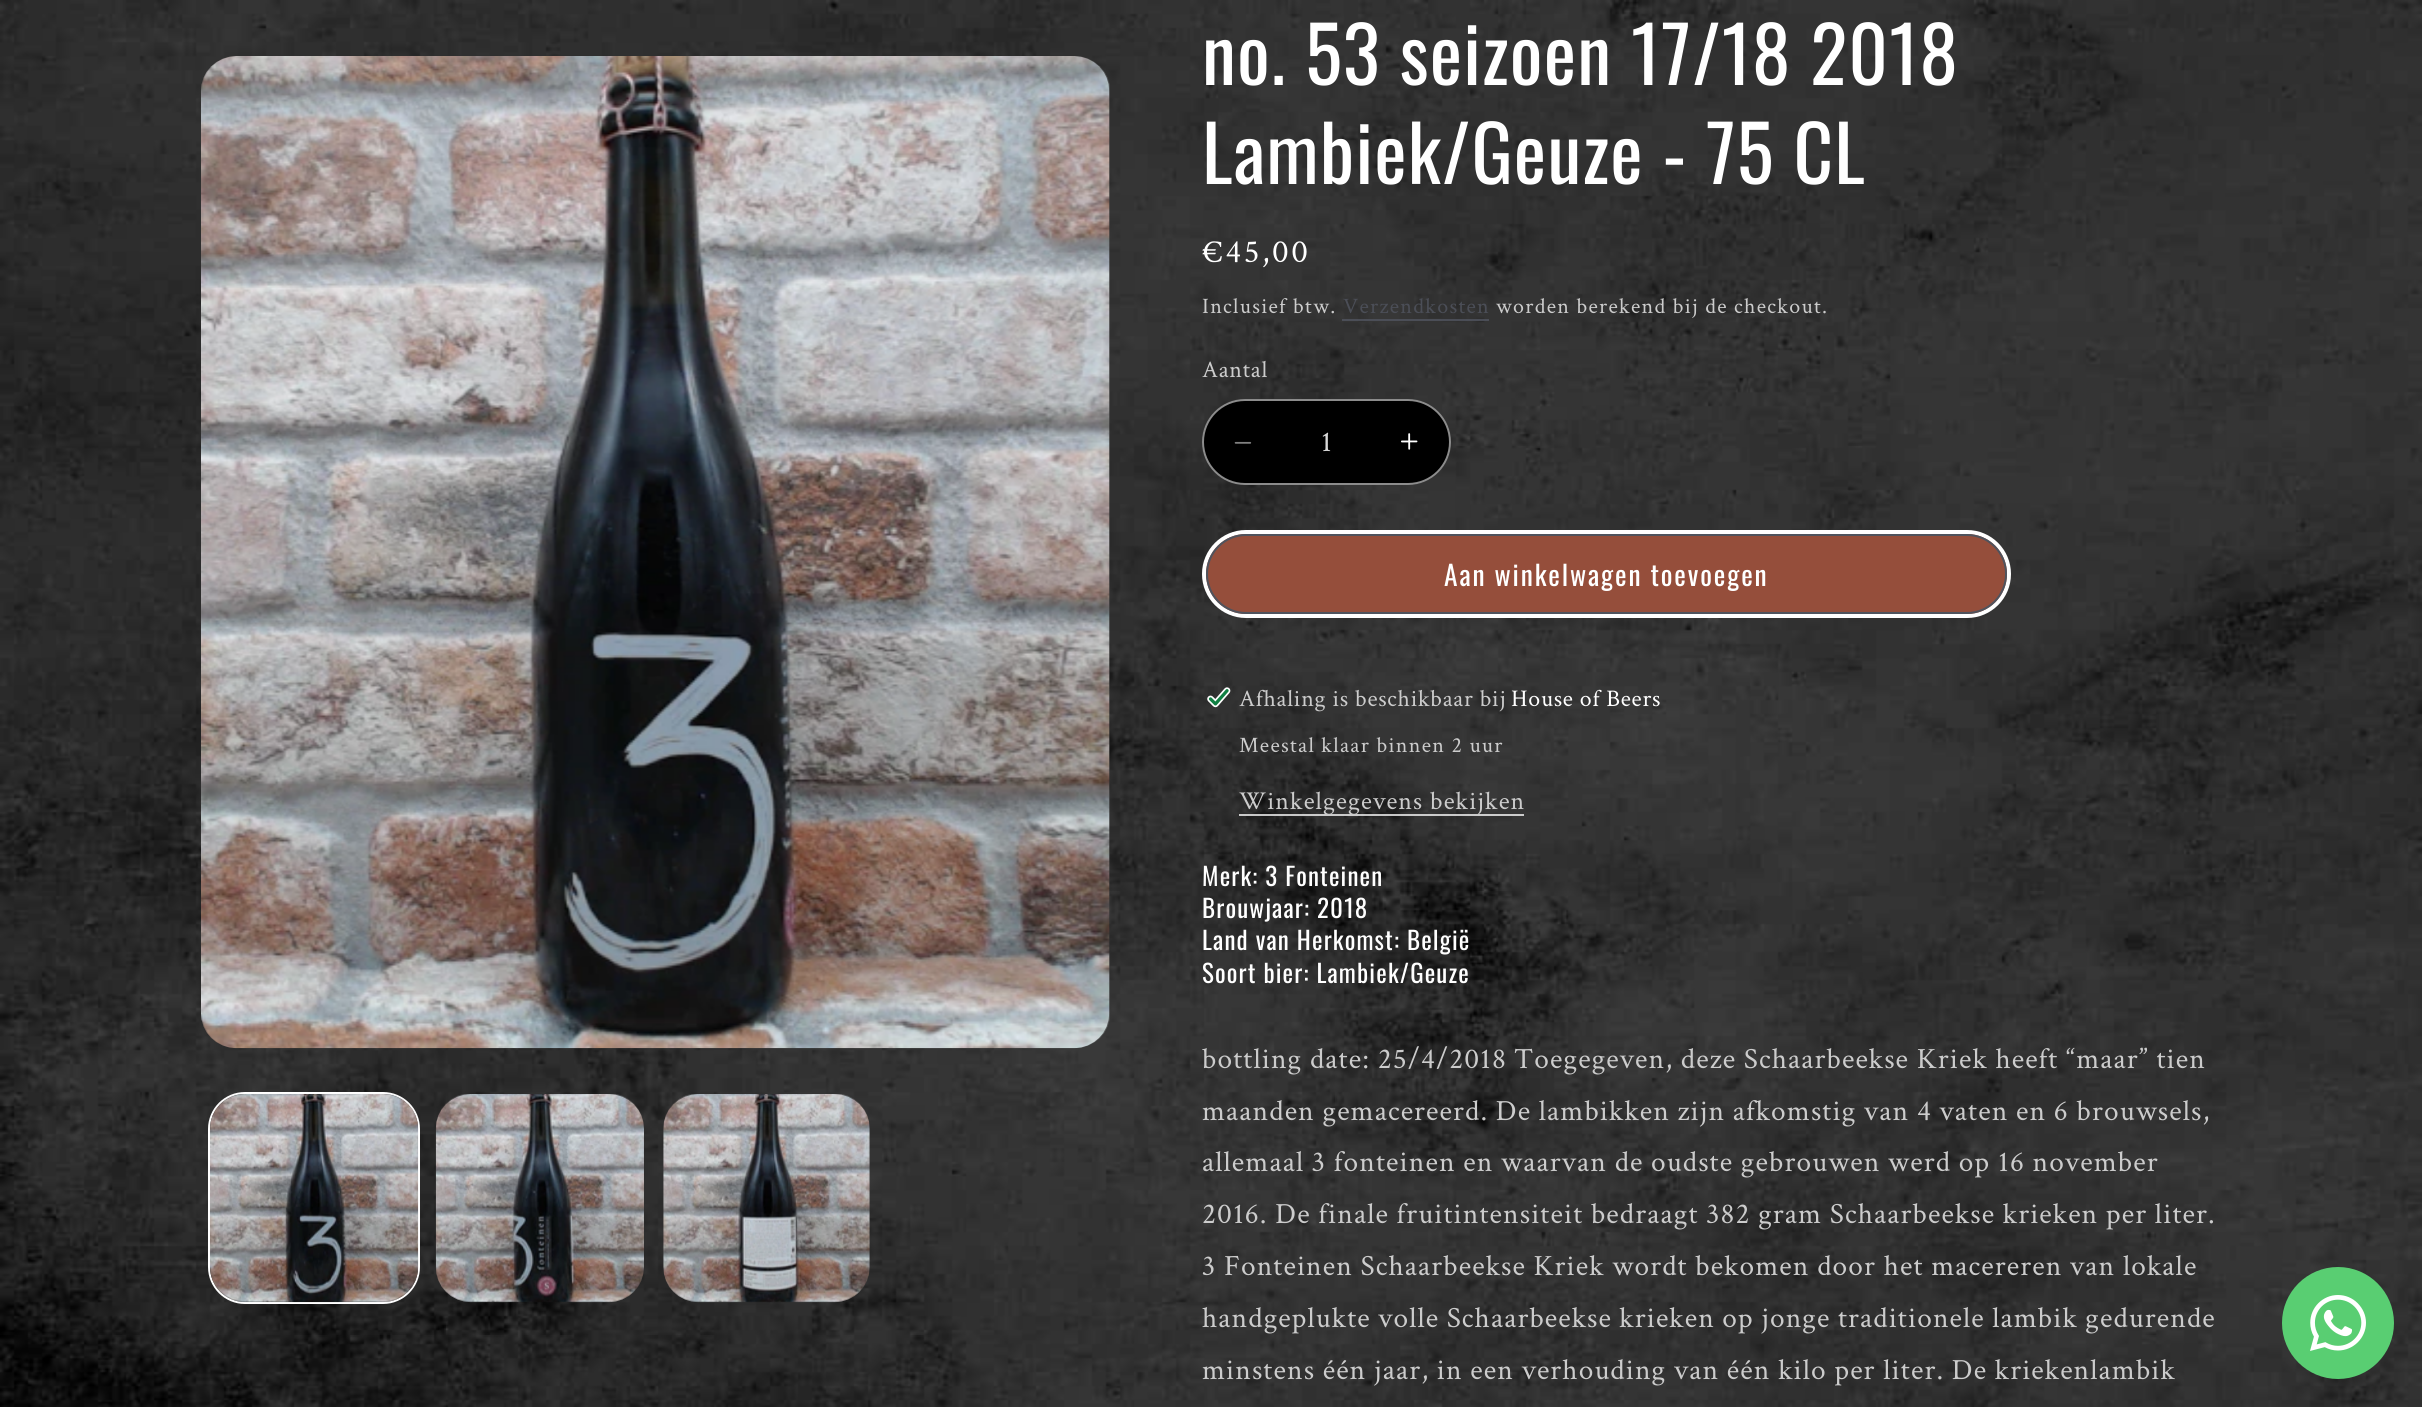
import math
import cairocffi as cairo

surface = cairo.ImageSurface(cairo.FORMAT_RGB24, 2422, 1407)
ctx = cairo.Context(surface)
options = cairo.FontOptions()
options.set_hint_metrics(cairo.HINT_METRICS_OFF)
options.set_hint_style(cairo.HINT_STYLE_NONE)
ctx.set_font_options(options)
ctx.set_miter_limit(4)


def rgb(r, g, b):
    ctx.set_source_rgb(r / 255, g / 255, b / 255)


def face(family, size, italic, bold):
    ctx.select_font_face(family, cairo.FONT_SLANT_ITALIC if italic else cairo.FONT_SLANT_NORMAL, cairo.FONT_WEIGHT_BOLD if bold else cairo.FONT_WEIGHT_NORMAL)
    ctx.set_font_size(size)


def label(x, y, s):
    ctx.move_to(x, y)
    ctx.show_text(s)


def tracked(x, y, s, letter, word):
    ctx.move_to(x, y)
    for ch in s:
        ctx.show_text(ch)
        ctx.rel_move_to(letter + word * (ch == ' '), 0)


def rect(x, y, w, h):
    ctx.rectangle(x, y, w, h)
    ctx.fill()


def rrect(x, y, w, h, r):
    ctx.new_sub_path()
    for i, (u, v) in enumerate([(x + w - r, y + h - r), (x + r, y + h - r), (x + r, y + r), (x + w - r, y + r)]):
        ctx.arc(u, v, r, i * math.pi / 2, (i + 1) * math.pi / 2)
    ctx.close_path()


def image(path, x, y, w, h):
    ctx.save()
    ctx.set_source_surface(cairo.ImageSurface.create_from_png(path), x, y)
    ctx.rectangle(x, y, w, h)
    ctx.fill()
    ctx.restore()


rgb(255, 255, 255)
ctx.paint()
image('image0.png', 0, 0, 2422, 1407)
image('image1.png', 201, 56, 909, 993)
rrect(209, 1093, 210, 210, 36)
rgb(255, 255, 255)
ctx.stroke()
image('image2.png', 210, 1094, 209, 209)
image('image3.png', 435, 1094, 209, 209)
image('image4.png', 663, 1094, 207, 209)
face('Oswald', 77, 0, 0)
tracked(1202, 85, 'no. 53 seizoen 17/18 2018', 1.15, 0)
tracked(1202, 184, 'Lambiek/Geuze - 75 CL', 1.15, 0)
face('Crimson Text', 33, 0, 0)
tracked(1202, 262, '€45,00', 2.5, 0)
face('Crimson Text', 22, 0, 0)
rgb(204, 204, 204)
tracked(1202, 313, 'Inclusief btw.', 1.3, 0)
rgb(75, 78, 87)
tracked(1343, 313, 'Verzendkosten', 1.3, 0)
ctx.set_source_rgba(0.31, 0.325, 0.365, 0.85)
rect(1342, 319, 147, 2)
rgb(204, 204, 204)
tracked(1496, 313, 'worden berekend bij de checkout.', 1.3, 0)
face('Crimson Text', 23.9, 0, 0)
tracked(1202, 377, 'Aantal', 0.75, 0)
rgb(0, 0, 0)
rrect(1202, 399, 249, 86, 43)
ctx.fill()
image('image5.png', 1234, 441, 18, 3)
image('image6.png', 1401, 433, 17, 17)
rrect(1203, 400, 247, 84, 42)
ctx.set_source_rgba(1, 1, 1, 0.55)
ctx.stroke()
face('Crimson Text', 29.4, 0, 0)
rgb(217, 217, 217)
label(1321, 451, '1')
rgb(149, 78, 59)
rrect(1204, 532, 805, 84, 42)
ctx.fill_preserve()
rgb(255, 255, 255)
ctx.set_line_width(4)
ctx.stroke()
rrect(1207, 535, 799, 78, 39)
rgb(79, 83, 93)
ctx.set_line_width(2)
ctx.stroke()
face('Oswald', 27.5, 0, 0)
rgb(255, 255, 255)
tracked(1444, 586, 'Aan winkelwagen toevoegen', 1.85, 0)
image('image7.png', 1207, 687, 24, 21)
face('Crimson Text', 23.9, 0, 0)
rgb(204, 204, 204)
tracked(1239, 706, 'Afhaling is beschikbaar bij', 0.75, 0)
rgb(255, 255, 255)
tracked(1511, 706, 'House of Beers', 0.75, 0)
face('Crimson Text', 22, 0, 0)
rgb(204, 204, 204)
tracked(1239, 752, 'Meestal klaar binnen 2 uur', 1.3, 0)
ctx.set_source_rgba(1, 1, 1, 0.75)
rect(1239, 814, 285, 2)
face('Crimson Text', 25.75, 0, 0)
rgb(204, 204, 204)
tracked(1239, 809, 'Winkelgegevens bekijken', 1.1, 0)
face('Oswald', 25, 0, 0)
rgb(255, 255, 255)
tracked(1202, 886, 'Merk: 3 Fonteinen', 1.15, 0)
tracked(1202, 918, 'Brouwjaar: 2018', 1.15, 0)
tracked(1202, 950, 'Land van Herkomst: België', 1.15, 0)
tracked(1202, 983, 'Soort bier: Lambiek/Geuze', 1.15, 0)
face('Crimson Text', 29.4, 0, 0)
rgb(204, 204, 204)
tracked(1202, 1068, 'bottling date: 25/4/2018', 1.1, 0)
tracked(1514, 1068, 'Toegegeven, deze Schaarbeekse Kriek heeft “maar” tien', 1.1, 0)
tracked(1202, 1120, 'maanden gemacereerd. De lambikken zijn afkomstig van 4 vaten en 6 brouwsels,', 1.1, 0)
tracked(1202, 1171, 'allemaal 3 fonteinen en waarvan de oudste gebrouwen werd op 16 november', 1.1, 0)
tracked(1202, 1223, '2016. De finale fruitintensiteit bedraagt 382 gram Schaarbeekse krieken per liter.', 1.1, 0)
tracked(1202, 1275, '3 Fonteinen Schaarbeekse Kriek wordt bekomen door het macereren van lokale', 1.1, 0)
tracked(1202, 1327, 'handgeplukte volle Schaarbeekse krieken op jonge traditionele lambik gedurende', 1.1, -0.25)
tracked(1202, 1379, 'minstens één jaar, in een verhouding van één kilo per liter. De kriekenlambik', 1.1, 0)
rgb(89, 206, 114)
ctx.new_path()
ctx.arc(2338, 1323, 56, 0, 2 * math.pi)
ctx.fill()
image('image8.png', 2310, 1295, 56, 56)
surface.write_to_png('render.png')
